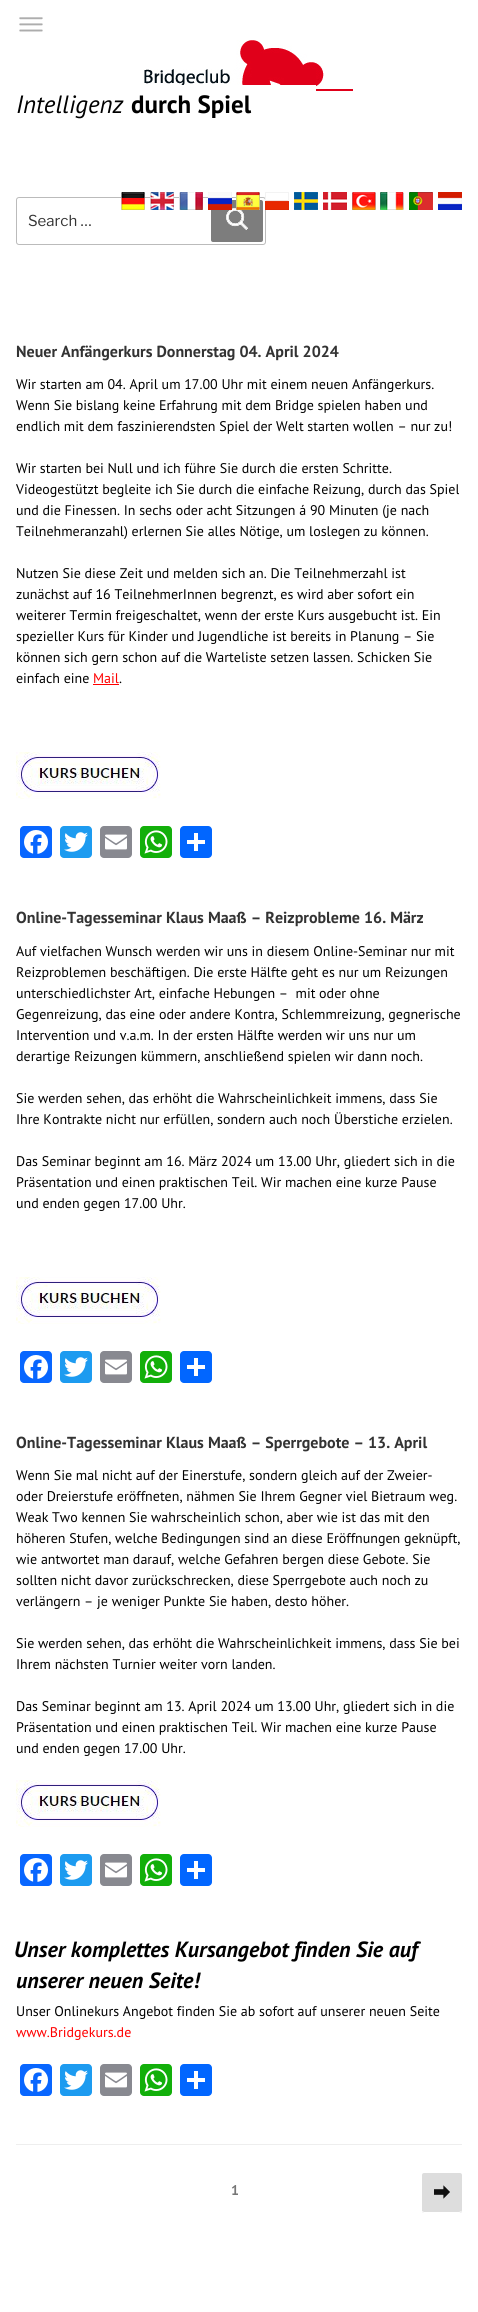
import math
import cairocffi as cairo

surface = cairo.ImageSurface(cairo.FORMAT_RGB24, 478, 2312)
ctx = cairo.Context(surface)
options = cairo.FontOptions()
options.set_hint_metrics(cairo.HINT_METRICS_OFF)
options.set_hint_style(cairo.HINT_STYLE_NONE)
ctx.set_font_options(options)
ctx.set_miter_limit(4)


def rgb(r, g, b):
    ctx.set_source_rgb(r / 255, g / 255, b / 255)


def face(family, size, italic, bold):
    ctx.select_font_face(family, cairo.FONT_SLANT_ITALIC if italic else cairo.FONT_SLANT_NORMAL, cairo.FONT_WEIGHT_BOLD if bold else cairo.FONT_WEIGHT_NORMAL)
    ctx.set_font_size(size)


def label(x, y, s):
    ctx.move_to(x, y)
    ctx.show_text(s)


def rect(x, y, w, h):
    ctx.rectangle(x, y, w, h)
    ctx.fill()


def rrect(x, y, w, h, r):
    ctx.new_sub_path()
    for i, (u, v) in enumerate([(x + w - r, y + h - r), (x + r, y + h - r), (x + r, y + r), (x + w - r, y + r)]):
        ctx.arc(u, v, r, i * math.pi / 2, (i + 1) * math.pi / 2)
    ctx.close_path()


def image(path, x, y, w, h):
    ctx.save()
    ctx.set_source_surface(cairo.ImageSurface.create_from_png(path), x, y)
    ctx.rectangle(x, y, w, h)
    ctx.fill()
    ctx.restore()


rgb(255, 255, 255)
ctx.paint()
image('image0.png', 19, 17, 24, 15)
image('image1.png', 124, 40, 229, 67)
rrect(16.5, 197.5, 249, 47, 2.5)
rgb(187, 187, 187)
ctx.set_line_width(1)
ctx.stroke()
image('image2.png', 121, 192, 24, 18)
image('image3.png', 150, 192, 24, 18)
image('image4.png', 179, 192, 24, 18)
rgb(125, 125, 125)
rrect(211, 200, 52, 42, 2)
ctx.fill()
image('image14.png', 226, 208, 22, 22)
image('image5.png', 208, 192, 24, 18)
image('image6.png', 236, 192, 24, 18)
image('image7.png', 265, 192, 24, 18)
image('image8.png', 294, 192, 24, 18)
image('image9.png', 323, 192, 24, 18)
image('image10.png', 352, 192, 24, 18)
image('image11.png', 380, 192, 24, 18)
image('image12.png', 409, 192, 24, 18)
image('image13.png', 438, 192, 24, 18)
rgb(255, 255, 255)
rect(124, 85, 192, 22)
face('PT Sans', 25, 1, 0)
rgb(0, 0, 0)
label(16, 113, 'Intelligenz')
face('PT Sans', 25, 0, 1)
label(131, 113, 'durch Spiel')
face('Libre Franklin', 15, 0, 0)
rgb(51, 51, 51)
label(28, 226, 'Search …')
face('PT Sans', 16, 0, 1)
label(16, 357, 'Neuer Anfängerkurs Donnerstag 04. April 2024')
face('PT Sans', 14, 0, 0)
rgb(0, 0, 0)
label(16, 389, 'Wir starten am 04. April um 17.00 Uhr mit einem neuen Anfängerkurs.')
label(16, 410, 'Wenn Sie bislang keine Erfahrung mit dem Bridge spielen haben und')
label(16, 431, 'endlich mit dem faszinierendsten Spiel der Welt starten wollen – nur zu!')
label(16, 473, 'Wir starten bei Null und ich führe Sie durch die ersten Schritte.')
label(16, 494, 'Videogestützt begleite ich Sie durch die einfache Reizung, durch das Spiel')
label(16, 515, 'und die Finessen. In sechs oder acht Sitzungen á 90 Minuten (je nach')
label(16, 536, 'Teilnehmeranzahl) erlernen Sie alles Nötige, um loslegen zu können.')
label(16, 578, 'Nutzen Sie diese Zeit und melden sich an. Die Teilnehmerzahl ist')
label(16, 599, 'zunächst auf 16 TeilnehmerInnen begrenzt, es wird aber sofort ein')
label(16, 620, 'weiterer Termin freigeschaltet, wenn der erste Kurs ausgebucht ist. Ein')
label(16, 641, 'spezieller Kurs für Kinder und Jugendliche ist bereits in Planung – Sie')
label(16, 662, 'können sich gern schon auf die Warteliste setzen lassen. Schicken Sie')
label(16, 683, 'einfach eine')
rgb(255, 0, 0)
label(93, 683, 'Mail')
rect(93, 684, 26, 1)
rgb(0, 0, 0)
label(119, 683, '.')
image('image15.png', 16, 752, 145, 47)
rgb(8, 102, 255)
rrect(20, 826, 32, 32, 4)
ctx.fill()
image('image16.png', 24, 830, 24, 24)
rgb(29, 155, 240)
rrect(60, 826, 32, 32, 4)
ctx.fill()
image('image17.png', 64, 832, 24, 20)
rgb(136, 137, 144)
rrect(100, 826, 32, 32, 4)
ctx.fill()
image('image18.png', 105, 834, 22, 16)
rgb(18, 175, 10)
rrect(140, 826, 32, 32, 4)
ctx.fill()
image('image19.png', 144, 830, 24, 24)
rgb(1, 102, 255)
rrect(180, 826, 32, 32, 4)
ctx.fill()
rgb(255, 255, 255)
rect(194, 833, 4, 18)
rect(187, 840, 18, 4)
face('PT Sans', 16, 0, 1)
rgb(51, 51, 51)
label(16, 923, 'Online-Tagesseminar Klaus Maaß – Reizprobleme 16. März')
face('PT Sans', 14, 0, 0)
rgb(0, 0, 0)
label(16, 956, 'Auf vielfachen Wunsch werden wir uns in diesem Online-Seminar nur mit')
label(16, 977, 'Reizproblemen beschäftigen. Die erste Hälfte geht es nur um Reizungen')
label(16, 998, 'unterschiedlichster Art, einfache Hebungen –  mit oder ohne')
label(16, 1019, 'Gegenreizung, das eine oder andere Kontra, Schlemmreizung, gegnerische')
label(16, 1040, 'Intervention und v.a.m. In der ersten Hälfte werden wir uns nur um')
label(16, 1061, 'derartige Reizungen kümmern, anschließend spielen wir dann noch.')
label(16, 1103, 'Sie werden sehen, das erhöht die Wahrscheinlichkeit immens, dass Sie')
label(16, 1124, 'Ihre Kontrakte nicht nur erfüllen, sondern auch noch Überstiche erzielen.')
label(16, 1166, 'Das Seminar beginnt am 16. März 2024 um 13.00 Uhr, gliedert sich in die')
label(16, 1187, 'Präsentation und einen praktischen Teil. Wir machen eine kurze Pause')
label(16, 1208, 'und enden gegen 17.00 Uhr.')
image('image15.png', 16, 1277, 145, 47)
rgb(8, 102, 255)
rrect(20, 1351, 32, 32, 4)
ctx.fill()
image('image16.png', 24, 1355, 24, 24)
rgb(29, 155, 240)
rrect(60, 1351, 32, 32, 4)
ctx.fill()
image('image17.png', 64, 1357, 24, 20)
rgb(136, 137, 144)
rrect(100, 1351, 32, 32, 4)
ctx.fill()
image('image18.png', 105, 1359, 22, 16)
rgb(18, 175, 10)
rrect(140, 1351, 32, 32, 4)
ctx.fill()
image('image19.png', 144, 1355, 24, 24)
rgb(1, 102, 255)
rrect(180, 1351, 32, 32, 4)
ctx.fill()
rgb(255, 255, 255)
rect(194, 1358, 4, 18)
rect(187, 1365, 18, 4)
face('PT Sans', 16, 0, 1)
rgb(51, 51, 51)
label(16, 1448, 'Online-Tagesseminar Klaus Maaß – Sperrgebote – 13. April')
face('PT Sans', 14, 0, 0)
rgb(0, 0, 0)
label(16, 1480, 'Wenn Sie mal nicht auf der Einerstufe, sondern gleich auf der Zweier-')
label(16, 1501, 'oder Dreierstufe eröffneten, nähmen Sie Ihrem Gegner viel Bietraum weg.')
label(16, 1522, 'Weak Two kennen Sie wahrscheinlich schon, aber wie ist das mit den')
label(16, 1543, 'höheren Stufen, welche Bedingungen sind an diese Eröffnungen geknüpft,')
label(16, 1564, 'wie antwortet man darauf, welche Gefahren bergen diese Gebote. Sie')
label(16, 1585, 'sollten nicht davor zurückschrecken, diese Sperrgebote auch noch zu')
label(16, 1606, 'verlängern – je weniger Punkte Sie haben, desto höher.')
label(16, 1648, 'Sie werden sehen, das erhöht die Wahrscheinlichkeit immens, dass Sie bei')
label(16, 1669, 'Ihrem nächsten Turnier weiter vorn landen.')
label(16, 1711, 'Das Seminar beginnt am 13. April 2024 um 13.00 Uhr, gliedert sich in die')
label(16, 1732, 'Präsentation und einen praktischen Teil. Wir machen eine kurze Pause')
label(16, 1753, 'und enden gegen 17.00 Uhr.')
image('image15.png', 16, 1780, 145, 47)
rgb(8, 102, 255)
rrect(20, 1854, 32, 32, 4)
ctx.fill()
image('image16.png', 24, 1858, 24, 24)
rgb(29, 155, 240)
rrect(60, 1854, 32, 32, 4)
ctx.fill()
image('image17.png', 64, 1860, 24, 20)
rgb(136, 137, 144)
rrect(100, 1854, 32, 32, 4)
ctx.fill()
image('image18.png', 105, 1862, 22, 16)
rgb(18, 175, 10)
rrect(140, 1854, 32, 32, 4)
ctx.fill()
image('image19.png', 144, 1858, 24, 24)
rgb(1, 102, 255)
rrect(180, 1854, 32, 32, 4)
ctx.fill()
rgb(255, 255, 255)
rect(194, 1861, 4, 18)
rect(187, 1868, 18, 4)
face('PT Sans', 22, 1, 1)
rgb(0, 0, 0)
label(14, 1957, 'Unser komplettes Kursangebot finden Sie auf')
label(16, 1988, 'unserer neuen Seite!')
face('PT Sans', 14, 0, 0)
label(16, 2016, 'Unser Onlinekurs Angebot finden Sie ab sofort auf unserer neuen Seite')
rgb(255, 0, 0)
label(16, 2037, 'www.Bridgekurs.de')
rgb(8, 102, 255)
rrect(20, 2064, 32, 32, 4)
ctx.fill()
image('image16.png', 24, 2068, 24, 24)
rgb(29, 155, 240)
rrect(60, 2064, 32, 32, 4)
ctx.fill()
image('image17.png', 64, 2070, 24, 20)
rgb(136, 137, 144)
rrect(100, 2064, 32, 32, 4)
ctx.fill()
image('image18.png', 105, 2072, 22, 16)
rgb(18, 175, 10)
rrect(140, 2064, 32, 32, 4)
ctx.fill()
image('image19.png', 144, 2068, 24, 24)
rgb(1, 102, 255)
rrect(180, 2064, 32, 32, 4)
ctx.fill()
rgb(255, 255, 255)
rect(194, 2071, 4, 18)
rect(187, 2078, 18, 4)
rgb(238, 238, 238)
rect(16, 2144, 446, 1)
face('PT Sans', 14, 0, 1)
rgb(118, 118, 118)
label(231, 2195, '1')
rgb(221, 221, 221)
rrect(422, 2173, 40, 40, 2)
ctx.fill()
rgb(255, 255, 255)
ctx.new_path()
ctx.move_to(422, 2211)
ctx.curve_to(422, 2214, 428, 2213, 430, 2213)
ctx.line_to(454, 2213)
ctx.curve_to(457, 2213, 462, 2214, 462, 2210)
ctx.line_to(462, 2211)
ctx.line_to(459, 2212)
ctx.line_to(424, 2212)
ctx.close_path()
ctx.fill()
image('image20.png', 434, 2185, 16, 14)
surface.write_to_png('render.png')
